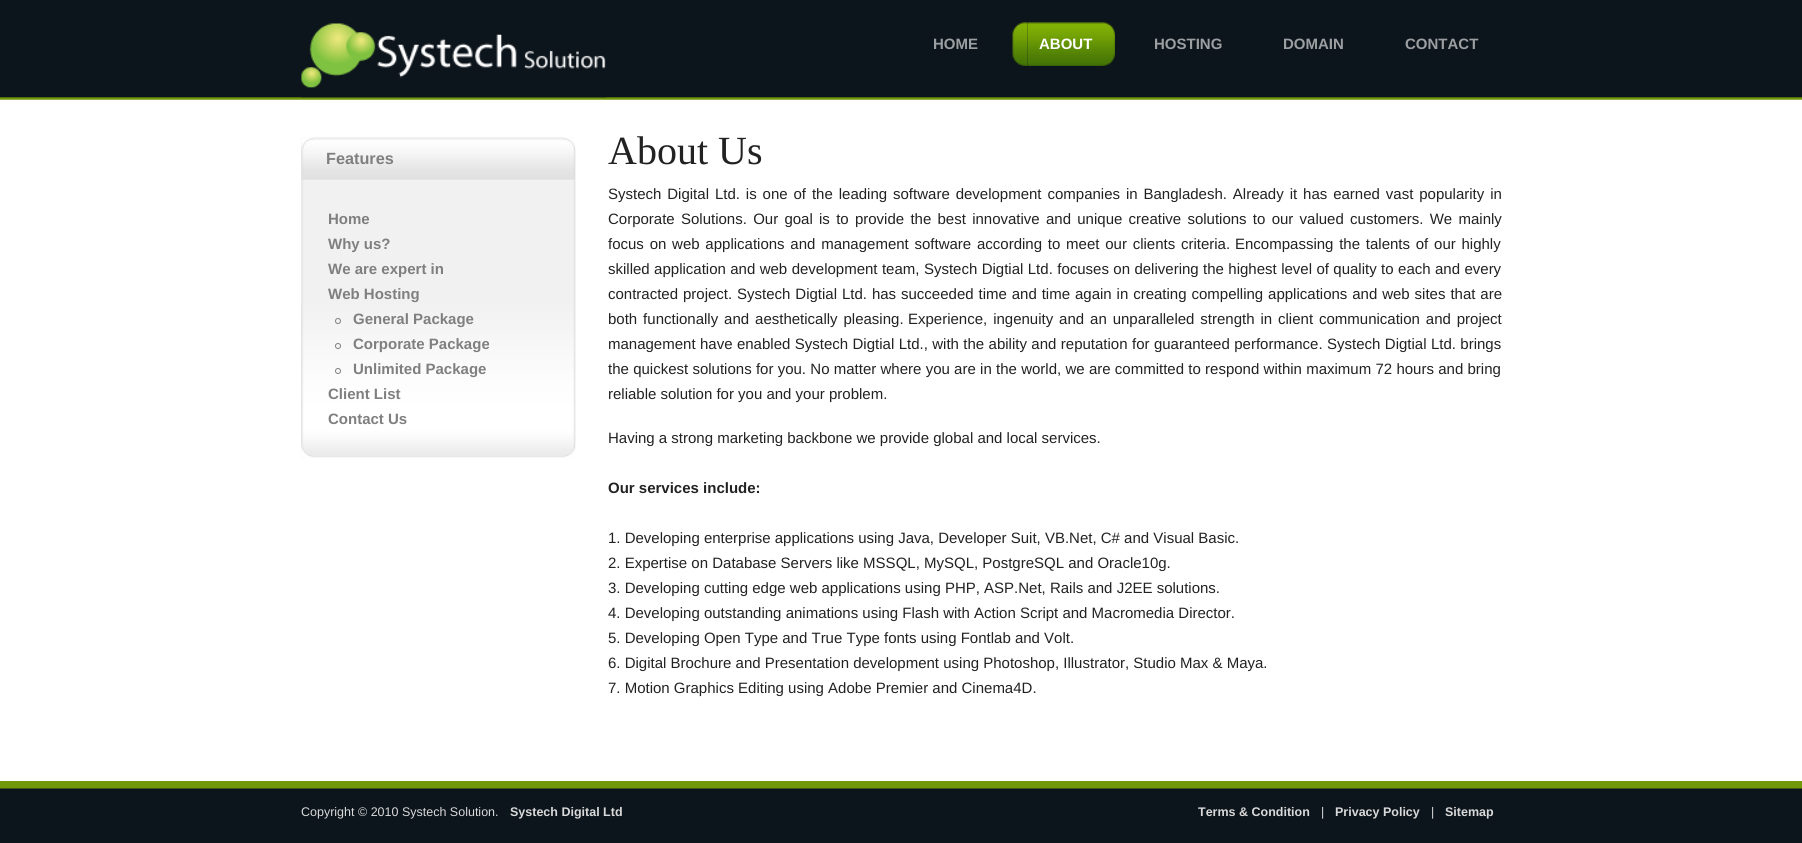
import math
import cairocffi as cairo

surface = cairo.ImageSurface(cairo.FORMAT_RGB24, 1802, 843)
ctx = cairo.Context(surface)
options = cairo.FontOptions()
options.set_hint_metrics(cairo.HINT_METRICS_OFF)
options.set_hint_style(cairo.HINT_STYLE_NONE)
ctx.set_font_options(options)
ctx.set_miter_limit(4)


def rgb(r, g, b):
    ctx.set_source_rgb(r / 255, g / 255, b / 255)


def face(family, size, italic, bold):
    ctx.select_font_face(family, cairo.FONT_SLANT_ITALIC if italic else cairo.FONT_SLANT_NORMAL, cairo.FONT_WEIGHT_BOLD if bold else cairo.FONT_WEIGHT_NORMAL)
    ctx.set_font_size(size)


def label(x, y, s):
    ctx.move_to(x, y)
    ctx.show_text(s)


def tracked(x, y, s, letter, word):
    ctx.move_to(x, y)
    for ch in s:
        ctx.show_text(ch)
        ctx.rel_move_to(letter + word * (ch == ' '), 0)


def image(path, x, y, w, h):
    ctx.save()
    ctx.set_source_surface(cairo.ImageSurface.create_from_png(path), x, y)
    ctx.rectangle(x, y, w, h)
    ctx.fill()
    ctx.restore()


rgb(255, 255, 255)
ctx.paint()
image('image0.png', 0, 0, 1802, 100)
image('image1.png', 301, 23, 306, 75)
face('Liberation Sans', 15, 0, 1)
rgb(156, 159, 162)
label(933, 49, 'HOME')
image('image2.png', 1012, 22, 16, 44)
image('image3.png', 1027, 22, 88, 44)
rgb(255, 255, 255)
label(1039, 49, 'ABOUT')
rgb(156, 159, 162)
label(1154, 49, 'HOSTING')
label(1283, 49, 'DOMAIN')
label(1405, 49, 'CONTACT')
image('image4.png', 301, 137, 275, 321)
image('image5.png', 301, 137, 275, 43)
face('Liberation Sans', 16.25, 0, 1)
rgb(127, 127, 127)
label(326, 164, 'Features')
image('image6.png', 301, 304, 275, 154)
face('Liberation Sans', 15, 0, 1)
label(328, 224, 'Home')
label(328, 249, 'Why us?')
label(328, 274, 'We are expert in')
label(328, 299, 'Web Hosting')
ctx.new_path()
ctx.arc(338, 321, 2.5, 0, 2 * math.pi)
ctx.set_line_width(1)
ctx.stroke()
label(353, 324, 'General Package')
ctx.new_path()
ctx.arc(338, 346, 2.5, 0, 2 * math.pi)
ctx.stroke()
label(353, 349, 'Corporate Package')
ctx.new_path()
ctx.arc(338, 371, 2.5, 0, 2 * math.pi)
ctx.stroke()
label(353, 374, 'Unlimited Package')
label(328, 399, 'Client List')
label(328, 424, 'Contact Us')
face('Liberation Serif', 40, 0, 0)
rgb(34, 34, 34)
label(608, 164, 'About Us')
face('Liberation Sans', 15, 0, 0)
tracked(608, 199, 'Systech Digital Ltd. is one of the leading software development companies in Bangladesh. Already it has earned vast popularity in', 0, 1.75)
tracked(608, 224, 'Corporate Solutions. Our goal is to provide the best innovative and unique creative solutions to our valued customers. We mainly', 0, 2.1)
tracked(608, 249, 'focus on web applications and management software according to meet our clients criteria.', 0, 1.6)
tracked(1235, 249, 'Encompassing the talents of our highly', 0, 1.6)
tracked(608, 274, 'skilled application and web development team, Systech Digtial Ltd. focuses on delivering the highest level of quality to each and every', 0, 0.25)
tracked(608, 299, 'contracted project. Systech Digtial Ltd. has succeeded time and time again in creating compelling applications and web sites that are', 0, 0.75)
tracked(608, 324, 'both functionally and aesthetically pleasing.', 0, 1.75)
tracked(908, 324, 'Experience, ingenuity and an unparalleled strength in client communication and project', 0, 1.75)
tracked(608, 349, 'management have enabled Systech Digtial Ltd., with the ability and reputation for guaranteed performance. Systech Digtial Ltd. brings', 0, 0.25)
tracked(608, 374, 'the quickest solutions for you. No matter where you are in the world, we are committed to respond within maximum 72 hours and bring', 0, 0.1)
label(608, 399, 'reliable solution for you and your problem.')
label(608, 443, 'Having a strong marketing backbone we provide global and local services.')
face('Liberation Sans', 15, 0, 1)
label(608, 493, 'Our services include:')
face('Liberation Sans', 15, 0, 0)
label(608, 543, '1. Developing enterprise applications using Java, Developer Suit, VB.Net, C# and Visual Basic.')
label(608, 568, '2. Expertise on Database Servers like MSSQL, MySQL, PostgreSQL and Oracle10g.')
label(608, 593, '3. Developing cutting edge web applications using PHP, ASP.Net, Rails and J2EE solutions.')
label(608, 618, '4. Developing outstanding animations using Flash with Action Script and Macromedia Director.')
label(608, 643, '5. Developing Open Type and True Type fonts using Fontlab and Volt.')
label(608, 668, '6. Digital Brochure and Presentation development using Photoshop, Illustrator, Studio Max & Maya.')
label(608, 693, '7. Motion Graphics Editing using Adobe Premier and Cinema4D.')
image('image7.png', 0, 781, 1802, 62)
face('Liberation Sans', 12.5, 0, 0)
rgb(217, 217, 217)
label(301, 816, 'Copyright © 2010 Systech Solution.')
face('Liberation Sans', 12.5, 0, 1)
label(510, 816, 'Systech Digital Ltd')
label(1198, 816, 'Terms & Condition')
face('Liberation Sans', 12.5, 0, 0)
label(1321, 816, '|')
face('Liberation Sans', 12.5, 0, 1)
label(1335, 816, 'Privacy Policy')
face('Liberation Sans', 12.5, 0, 0)
label(1431, 816, '|')
face('Liberation Sans', 12.5, 0, 1)
label(1445, 816, 'Sitemap')
surface.write_to_png('render.png')
